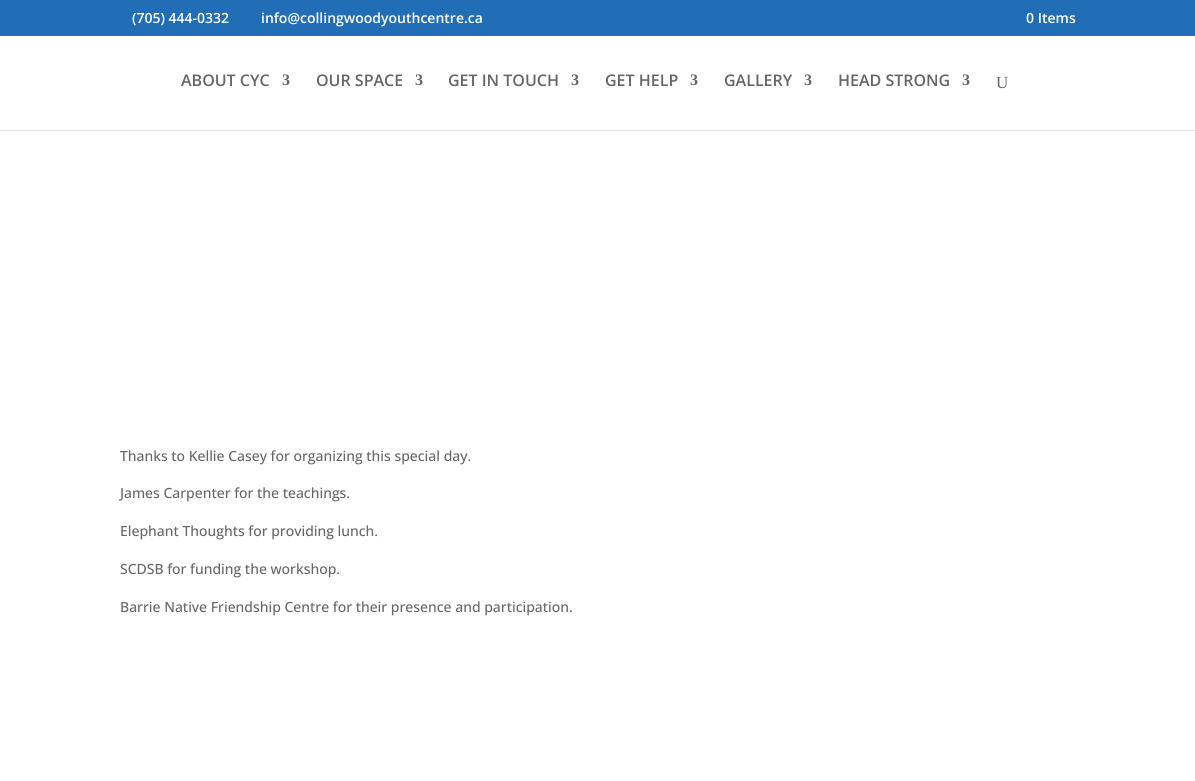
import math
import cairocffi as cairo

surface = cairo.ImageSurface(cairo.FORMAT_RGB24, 1195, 781)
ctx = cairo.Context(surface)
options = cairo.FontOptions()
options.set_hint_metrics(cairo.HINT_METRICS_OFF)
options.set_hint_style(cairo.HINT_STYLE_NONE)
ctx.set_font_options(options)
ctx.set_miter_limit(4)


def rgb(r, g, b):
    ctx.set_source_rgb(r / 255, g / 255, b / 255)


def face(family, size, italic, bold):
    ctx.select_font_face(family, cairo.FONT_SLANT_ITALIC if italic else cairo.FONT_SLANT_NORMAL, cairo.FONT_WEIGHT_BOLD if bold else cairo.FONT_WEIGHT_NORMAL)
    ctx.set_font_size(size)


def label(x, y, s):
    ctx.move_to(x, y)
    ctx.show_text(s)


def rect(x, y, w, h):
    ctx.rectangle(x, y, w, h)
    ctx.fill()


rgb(255, 255, 255)
ctx.paint()
rgb(33, 110, 182)
rect(0, 0, 1195, 36)
face('Open Sans SemiBold', 14, 0, 0)
rgb(255, 255, 255)
label(132, 23, '(705) 444-0332')
label(261, 23, 'info@collingwoodyouthcentre.ca')
label(1026, 23, '0 Items')
rgb(230, 230, 230)
rect(0, 130, 1195, 1)
face('Open Sans SemiBold', 16, 0, 0)
rgb(102, 102, 102)
label(181, 86, 'ABOUT CYC')
face('Liberation Serif', 16, 0, 1)
label(282, 85, '3')
face('Open Sans SemiBold', 16, 0, 0)
label(316, 86, 'OUR SPACE')
face('Liberation Serif', 16, 0, 1)
label(415, 85, '3')
face('Open Sans SemiBold', 16, 0, 0)
label(448, 86, 'GET IN TOUCH')
face('Liberation Serif', 16, 0, 1)
label(571, 85, '3')
face('Open Sans SemiBold', 16, 0, 0)
label(605, 86, 'GET HELP')
face('Liberation Serif', 16, 0, 1)
label(690, 85, '3')
face('Open Sans SemiBold', 16, 0, 0)
label(724, 86, 'GALLERY')
face('Liberation Serif', 16, 0, 1)
label(804, 85, '3')
face('Open Sans SemiBold', 16, 0, 0)
label(838, 86, 'HEAD STRONG')
face('Liberation Serif', 16, 0, 1)
label(962, 85, '3')
face('Liberation Serif', 17, 0, 0)
label(996, 88, 'U')
face('Open Sans Medium', 14, 0, 0)
label(120, 461, 'Thanks to Kellie Casey for organizing this special day.')
label(120, 498, 'James Carpenter for the teachings.')
label(120, 536, 'Elephant Thoughts for providing lunch.')
label(120, 574, 'SCDSB for funding the workshop.')
label(120, 612, 'Barrie Native Friendship Centre for their presence and participation.')
surface.write_to_png('render.png')
